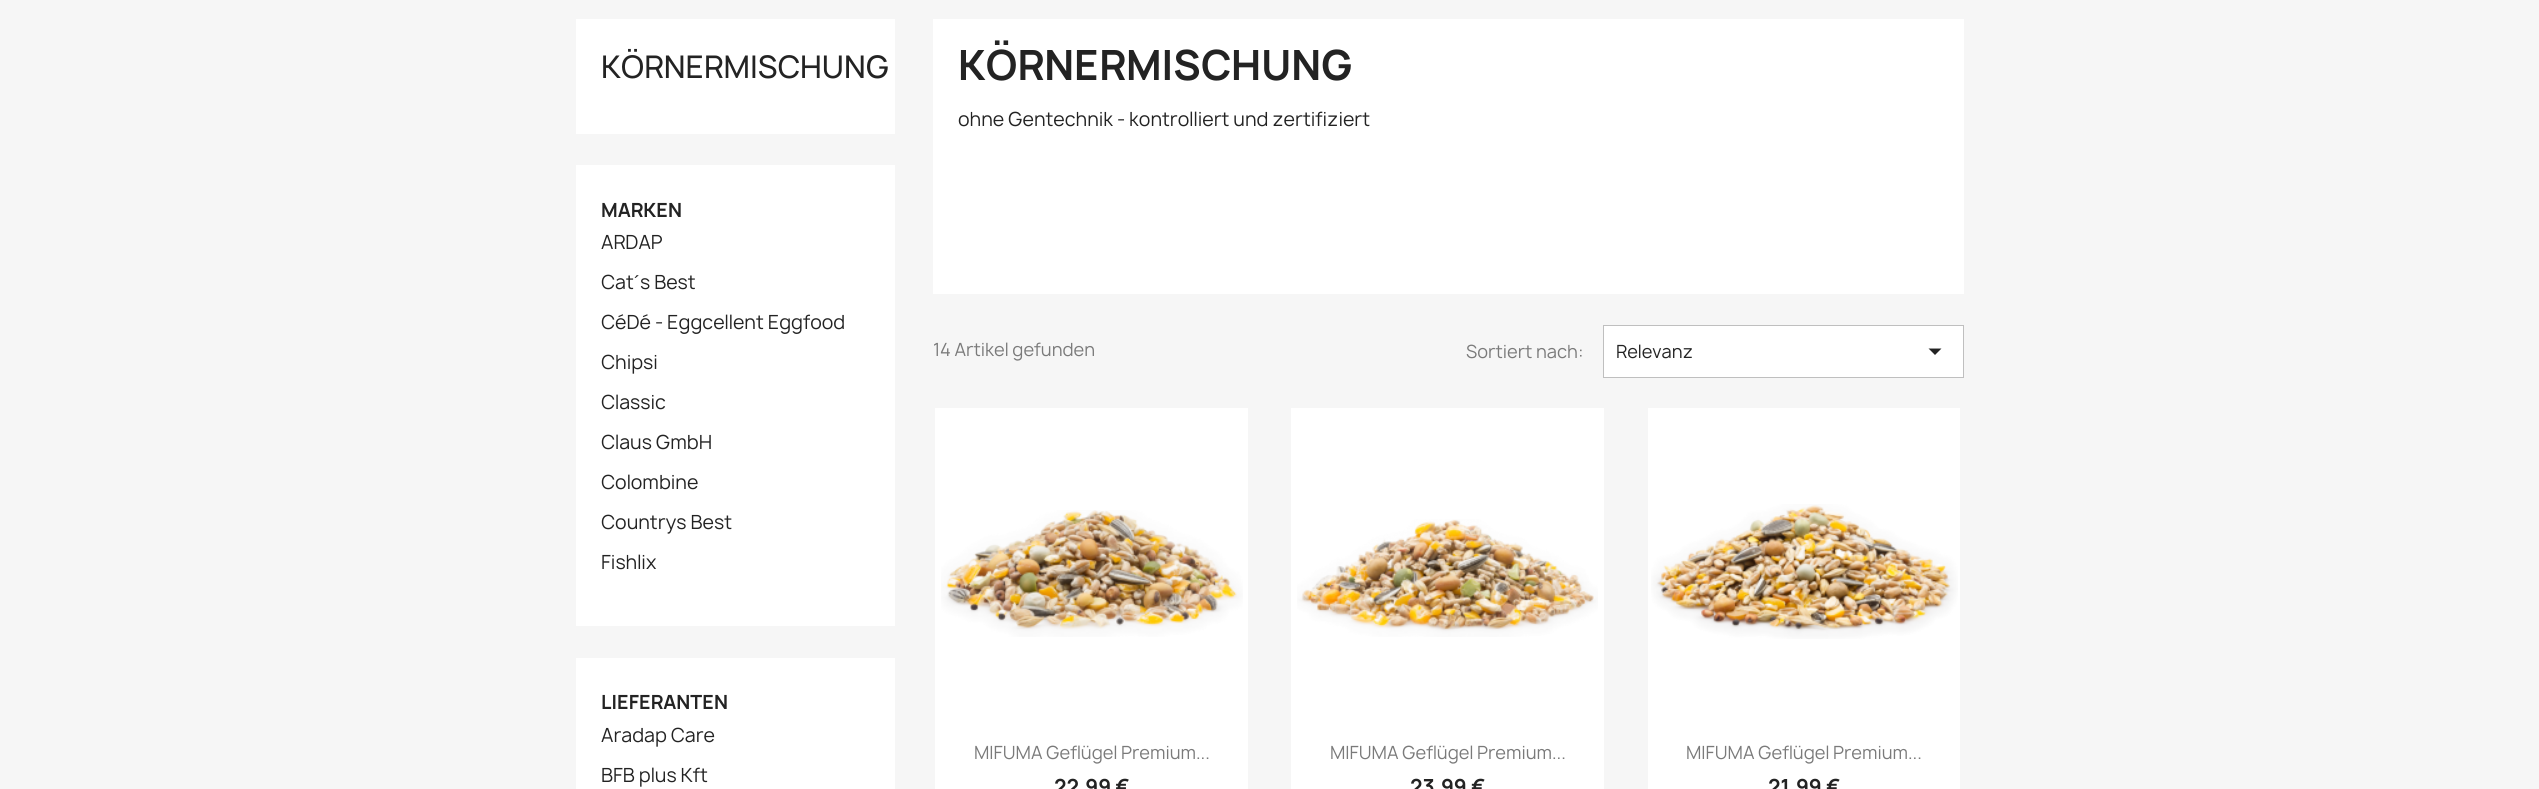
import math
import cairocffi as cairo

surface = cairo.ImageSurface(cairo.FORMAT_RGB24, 2539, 789)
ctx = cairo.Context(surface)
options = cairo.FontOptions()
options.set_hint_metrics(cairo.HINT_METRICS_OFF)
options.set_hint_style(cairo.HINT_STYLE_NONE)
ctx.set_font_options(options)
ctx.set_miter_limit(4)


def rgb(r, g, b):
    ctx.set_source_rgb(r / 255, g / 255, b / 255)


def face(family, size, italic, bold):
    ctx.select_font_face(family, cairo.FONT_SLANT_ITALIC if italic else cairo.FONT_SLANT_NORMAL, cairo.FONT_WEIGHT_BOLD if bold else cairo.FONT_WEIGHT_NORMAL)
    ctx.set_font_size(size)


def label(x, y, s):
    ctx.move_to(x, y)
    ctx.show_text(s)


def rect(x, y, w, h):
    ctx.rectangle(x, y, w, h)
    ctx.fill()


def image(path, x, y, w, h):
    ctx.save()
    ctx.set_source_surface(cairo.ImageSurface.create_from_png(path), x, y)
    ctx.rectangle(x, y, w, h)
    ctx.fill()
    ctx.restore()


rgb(246, 246, 246)
ctx.paint()
rgb(255, 255, 255)
rect(576, 19, 319, 115)
face('Manrope Medium', 30, 0, 0)
rgb(35, 35, 35)
label(601, 78, 'KÖRNERMISCHUNG')
rgb(255, 255, 255)
rect(576, 165, 319, 461)
face('Manrope', 18.75, 0, 1)
rgb(35, 35, 35)
label(601, 217, 'MARKEN')
face('Manrope', 18.75, 0, 0)
label(601, 249, 'ARDAP')
label(601, 289, 'Cat')
face('Liberation Sans', 18.75, 0, 0)
label(634, 289, '´')
face('Manrope', 18.75, 0, 0)
label(640, 289, 's Best')
label(601, 329, 'CéDé - Eggcellent Eggfood')
label(601, 369, 'Chipsi')
label(601, 409, 'Classic')
label(601, 449, 'Claus GmbH')
label(601, 489, 'Colombine')
label(601, 529, 'Countrys Best')
label(601, 569, 'Fishlix')
rgb(255, 255, 255)
rect(576, 658, 319, 131)
face('Manrope', 18.75, 0, 1)
rgb(35, 35, 35)
label(601, 709, 'LIEFERANTEN')
face('Manrope', 18.75, 0, 0)
label(601, 742, 'Aradap Care')
label(601, 782, 'BFB plus Kft')
rgb(255, 255, 255)
rect(933, 19, 1031, 275)
face('Manrope', 40, 0, 1)
rgb(35, 35, 35)
label(958, 80, 'KÖRNERMISCHUNG')
face('Manrope', 18.75, 0, 0)
label(958, 126, 'ohne Gentechnik - kontrolliert und zertifiziert')
face('Manrope', 17.5, 0, 0)
rgb(122, 122, 122)
label(933, 356, '14 Artikel gefunden')
label(1466, 358, 'Sortiert nach:')
rgb(255, 255, 255)
ctx.rectangle(1603.5, 325.5, 360, 52)
ctx.fill_preserve()
rgb(191, 191, 191)
ctx.set_line_width(1)
ctx.stroke()
rgb(35, 35, 35)
label(1616, 358, 'Relevanz')
ctx.new_path()
ctx.move_to(1928.5, 348.5)
ctx.line_to(1941.5, 348.5)
ctx.line_to(1935, 355)
ctx.close_path()
ctx.fill()
rgb(255, 255, 255)
rect(935, 408, 313, 381)
image('image0.png', 941, 510, 302, 127)
rgb(122, 122, 122)
label(974, 759, 'MIFUMA Geflügel Premium...')
face('Manrope', 20, 0, 1)
rgb(35, 35, 35)
label(1054, 794, '22,99 €')
rgb(255, 255, 255)
rect(1291, 408, 313, 381)
image('image1.png', 1297, 519, 301, 118)
face('Manrope', 17.5, 0, 0)
rgb(122, 122, 122)
label(1330, 759, 'MIFUMA Geflügel Premium...')
face('Manrope', 20, 0, 1)
rgb(35, 35, 35)
label(1410, 794, '23,99 €')
rgb(255, 255, 255)
rect(1648, 408, 312, 381)
image('image2.png', 1651, 504, 307, 135)
face('Manrope', 17.5, 0, 0)
rgb(122, 122, 122)
label(1686, 759, 'MIFUMA Geflügel Premium...')
face('Manrope', 20, 0, 1)
rgb(35, 35, 35)
label(1768, 794, '21,99 €')
surface.write_to_png('render.png')
